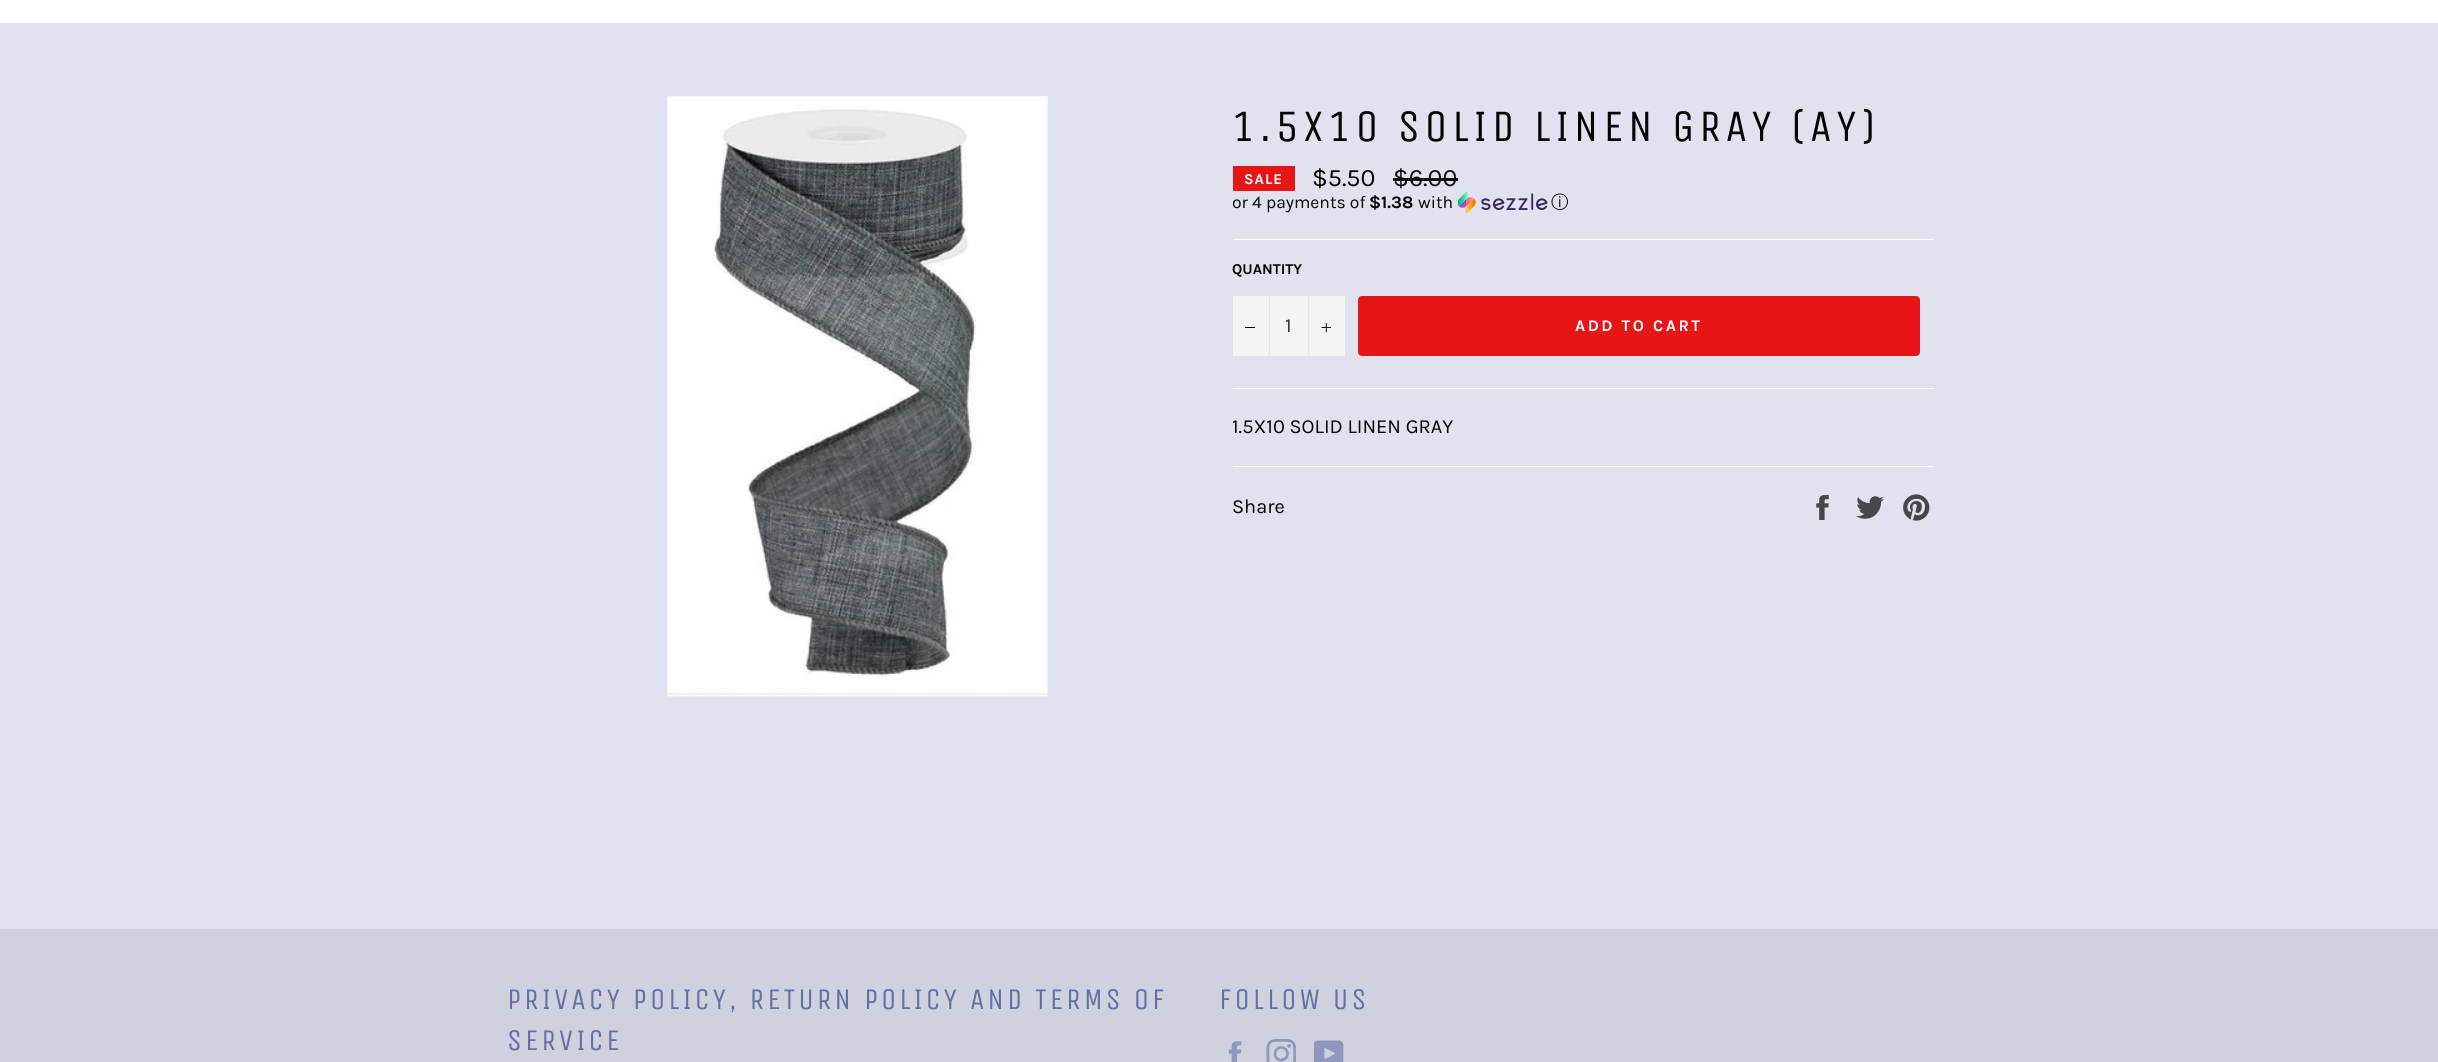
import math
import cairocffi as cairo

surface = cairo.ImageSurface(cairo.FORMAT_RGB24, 2438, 1062)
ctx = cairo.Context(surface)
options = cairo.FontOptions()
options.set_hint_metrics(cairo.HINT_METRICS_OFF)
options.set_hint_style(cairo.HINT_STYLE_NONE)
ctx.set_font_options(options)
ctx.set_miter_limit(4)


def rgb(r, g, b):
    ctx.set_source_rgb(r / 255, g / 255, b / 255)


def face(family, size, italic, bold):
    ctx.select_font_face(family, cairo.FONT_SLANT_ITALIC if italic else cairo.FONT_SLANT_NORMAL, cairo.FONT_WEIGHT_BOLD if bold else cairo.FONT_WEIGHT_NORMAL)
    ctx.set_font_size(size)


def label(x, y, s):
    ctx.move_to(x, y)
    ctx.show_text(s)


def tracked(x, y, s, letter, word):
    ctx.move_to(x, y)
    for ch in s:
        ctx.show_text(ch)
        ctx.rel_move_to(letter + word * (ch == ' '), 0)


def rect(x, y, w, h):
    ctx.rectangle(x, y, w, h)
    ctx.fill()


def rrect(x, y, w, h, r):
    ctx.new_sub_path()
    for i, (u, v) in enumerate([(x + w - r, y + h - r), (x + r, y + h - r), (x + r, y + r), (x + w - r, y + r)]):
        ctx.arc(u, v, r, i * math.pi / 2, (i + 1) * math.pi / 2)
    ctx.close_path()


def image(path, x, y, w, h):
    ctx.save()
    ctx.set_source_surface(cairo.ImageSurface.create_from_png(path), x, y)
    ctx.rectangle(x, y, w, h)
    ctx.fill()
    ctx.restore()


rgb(224, 227, 239)
ctx.paint()
rgb(255, 255, 255)
rect(0, 0, 2438, 23)
image('image0.png', 667, 96, 381, 601)
face('Unica One', 45, 0, 0)
rgb(3, 3, 3)
tracked(1232, 141, '1.5X10 SOLID LINEN GRAY (AY)', 4.5, 0)
rgb(231, 22, 22)
rect(1233, 166, 62, 25)
face('Karla', 15, 0, 1)
rgb(255, 255, 255)
tracked(1244, 184, 'SALE', 1, 0)
face('Karla', 25, 0, 0)
rgb(3, 3, 3)
label(1312, 186, '$5.50')
rgb(16, 16, 16)
label(1393, 186, '$6.00')
rect(1393, 178, 65, 3)
ctx.save()
ctx.rectangle(1233, 191, 700, 23)
ctx.clip()
face('Karla', 17.5, 0, 0)
rgb(3, 3, 3)
label(1232, 208, 'or 4 payments of')
ctx.restore()
face('Karla', 17.5, 0, 1)
rgb(3, 3, 3)
label(1369, 208, '$1.38')
face('Karla', 17.5, 0, 0)
label(1418, 208, 'with')
image('image1.png', 1458, 191, 90, 23)
face('WenQuanYi Zen Hei Medium', 17.5, 0, 0)
label(1551, 208, 'ⓘ')
rgb(255, 255, 255)
rect(1233, 239, 700, 1)
face('Karla', 15, 0, 1)
rgb(3, 3, 3)
label(1232, 274, 'QUANTITY')
rgb(244, 244, 244)
rect(1233, 296, 112, 60)
rgb(231, 231, 231)
rect(1269, 296, 1, 60)
rgb(3, 3, 3)
rect(1245, 327, 10, 1)
face('Karla', 20, 0, 0)
rgb(51, 51, 51)
label(1285, 332, '1')
rgb(231, 231, 231)
rect(1308, 296, 1, 60)
image('image2.png', 1321, 323, 10, 10)
rgb(231, 22, 22)
rrect(1358, 296, 562, 60, 4)
ctx.fill()
face('Karla', 16.25, 0, 1)
rgb(255, 255, 255)
tracked(1575, 331, 'ADD TO CART', 2.5, 0)
rect(1233, 388, 700, 1)
face('Karla', 20, 0, 0)
rgb(3, 3, 3)
label(1232, 433, '1.5X10 SOLID LINEN GRAY')
rgb(255, 255, 255)
rect(1233, 466, 700, 1)
rgb(3, 3, 3)
label(1232, 513, 'Share')
image('image3.png', 1816, 495, 13, 25)
image('image4.png', 1856, 496, 28, 23)
image('image5.png', 1903, 494, 27, 27)
rgb(207, 209, 222)
rect(0, 929, 2438, 133)
face('Unica One', 30, 0, 0)
rgb(100, 111, 165)
tracked(507, 1009, 'PRIVACY POLICY, RETURN POLICY AND TERMS OF', 3, 0)
tracked(507, 1050, 'SERVICE', 3, 0)
tracked(1219, 1009, 'FOLLOW US', 3, 0)
image('image6.png', 1228, 1041, 14, 21)
image('image7.png', 1266, 1039, 30, 23)
image('image8.png', 1314, 1040, 30, 22)
surface.write_to_png('render.png')
